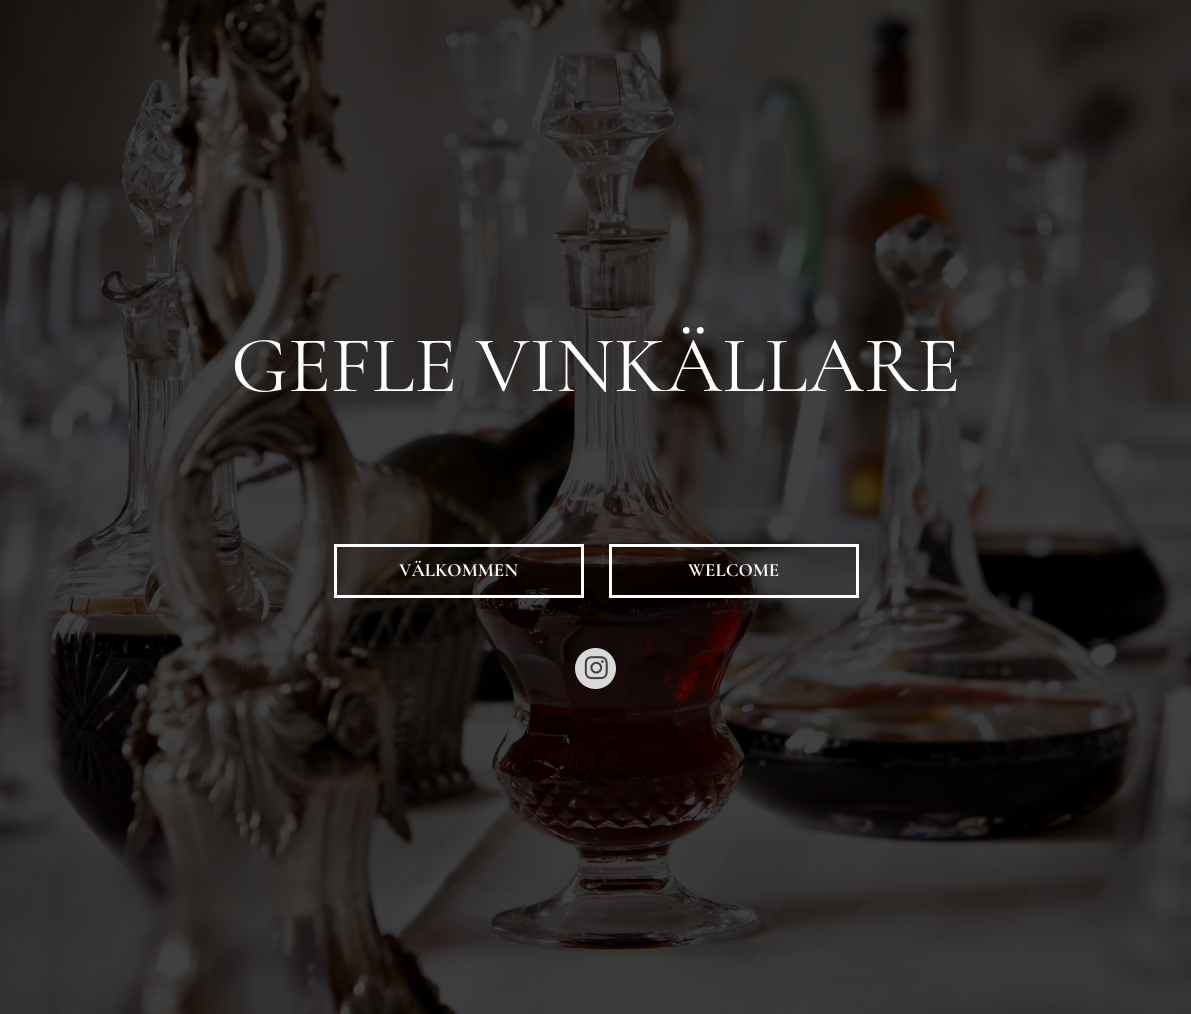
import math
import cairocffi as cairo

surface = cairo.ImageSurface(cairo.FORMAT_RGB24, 1191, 1014)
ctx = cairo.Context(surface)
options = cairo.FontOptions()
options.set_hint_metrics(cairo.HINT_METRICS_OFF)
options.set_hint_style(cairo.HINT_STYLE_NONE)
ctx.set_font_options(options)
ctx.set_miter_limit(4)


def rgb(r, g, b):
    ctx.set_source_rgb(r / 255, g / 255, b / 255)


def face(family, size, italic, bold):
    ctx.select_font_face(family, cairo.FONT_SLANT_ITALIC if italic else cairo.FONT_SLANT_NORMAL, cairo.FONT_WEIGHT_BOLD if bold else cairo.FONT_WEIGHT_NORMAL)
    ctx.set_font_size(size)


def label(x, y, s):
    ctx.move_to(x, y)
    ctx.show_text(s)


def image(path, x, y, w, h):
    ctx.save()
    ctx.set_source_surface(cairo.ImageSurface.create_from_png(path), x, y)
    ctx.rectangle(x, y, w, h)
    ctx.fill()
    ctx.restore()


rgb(255, 255, 255)
ctx.paint()
image('image0.png', 0, 0, 1191, 1014)
face('Cormorant Garamond', 80, 0, 0)
rgb(255, 255, 255)
label(231, 391, 'GEFLE VINKÄLLARE')
ctx.rectangle(335.5, 545.5, 247, 51)
ctx.set_line_width(3)
ctx.stroke()
face('Cormorant Garamond', 18.75, 0, 1)
label(399, 576, 'VÄLKOMMEN')
ctx.rectangle(610.5, 545.5, 247, 51)
ctx.stroke()
label(688, 576, 'WELCOME')
rgb(217, 217, 217)
ctx.new_path()
ctx.arc(595.5, 668.5, 20.5, 0, 2 * math.pi)
ctx.fill()
image('image1.png', 584, 656, 24, 24)
surface.write_to_png('render.png')
